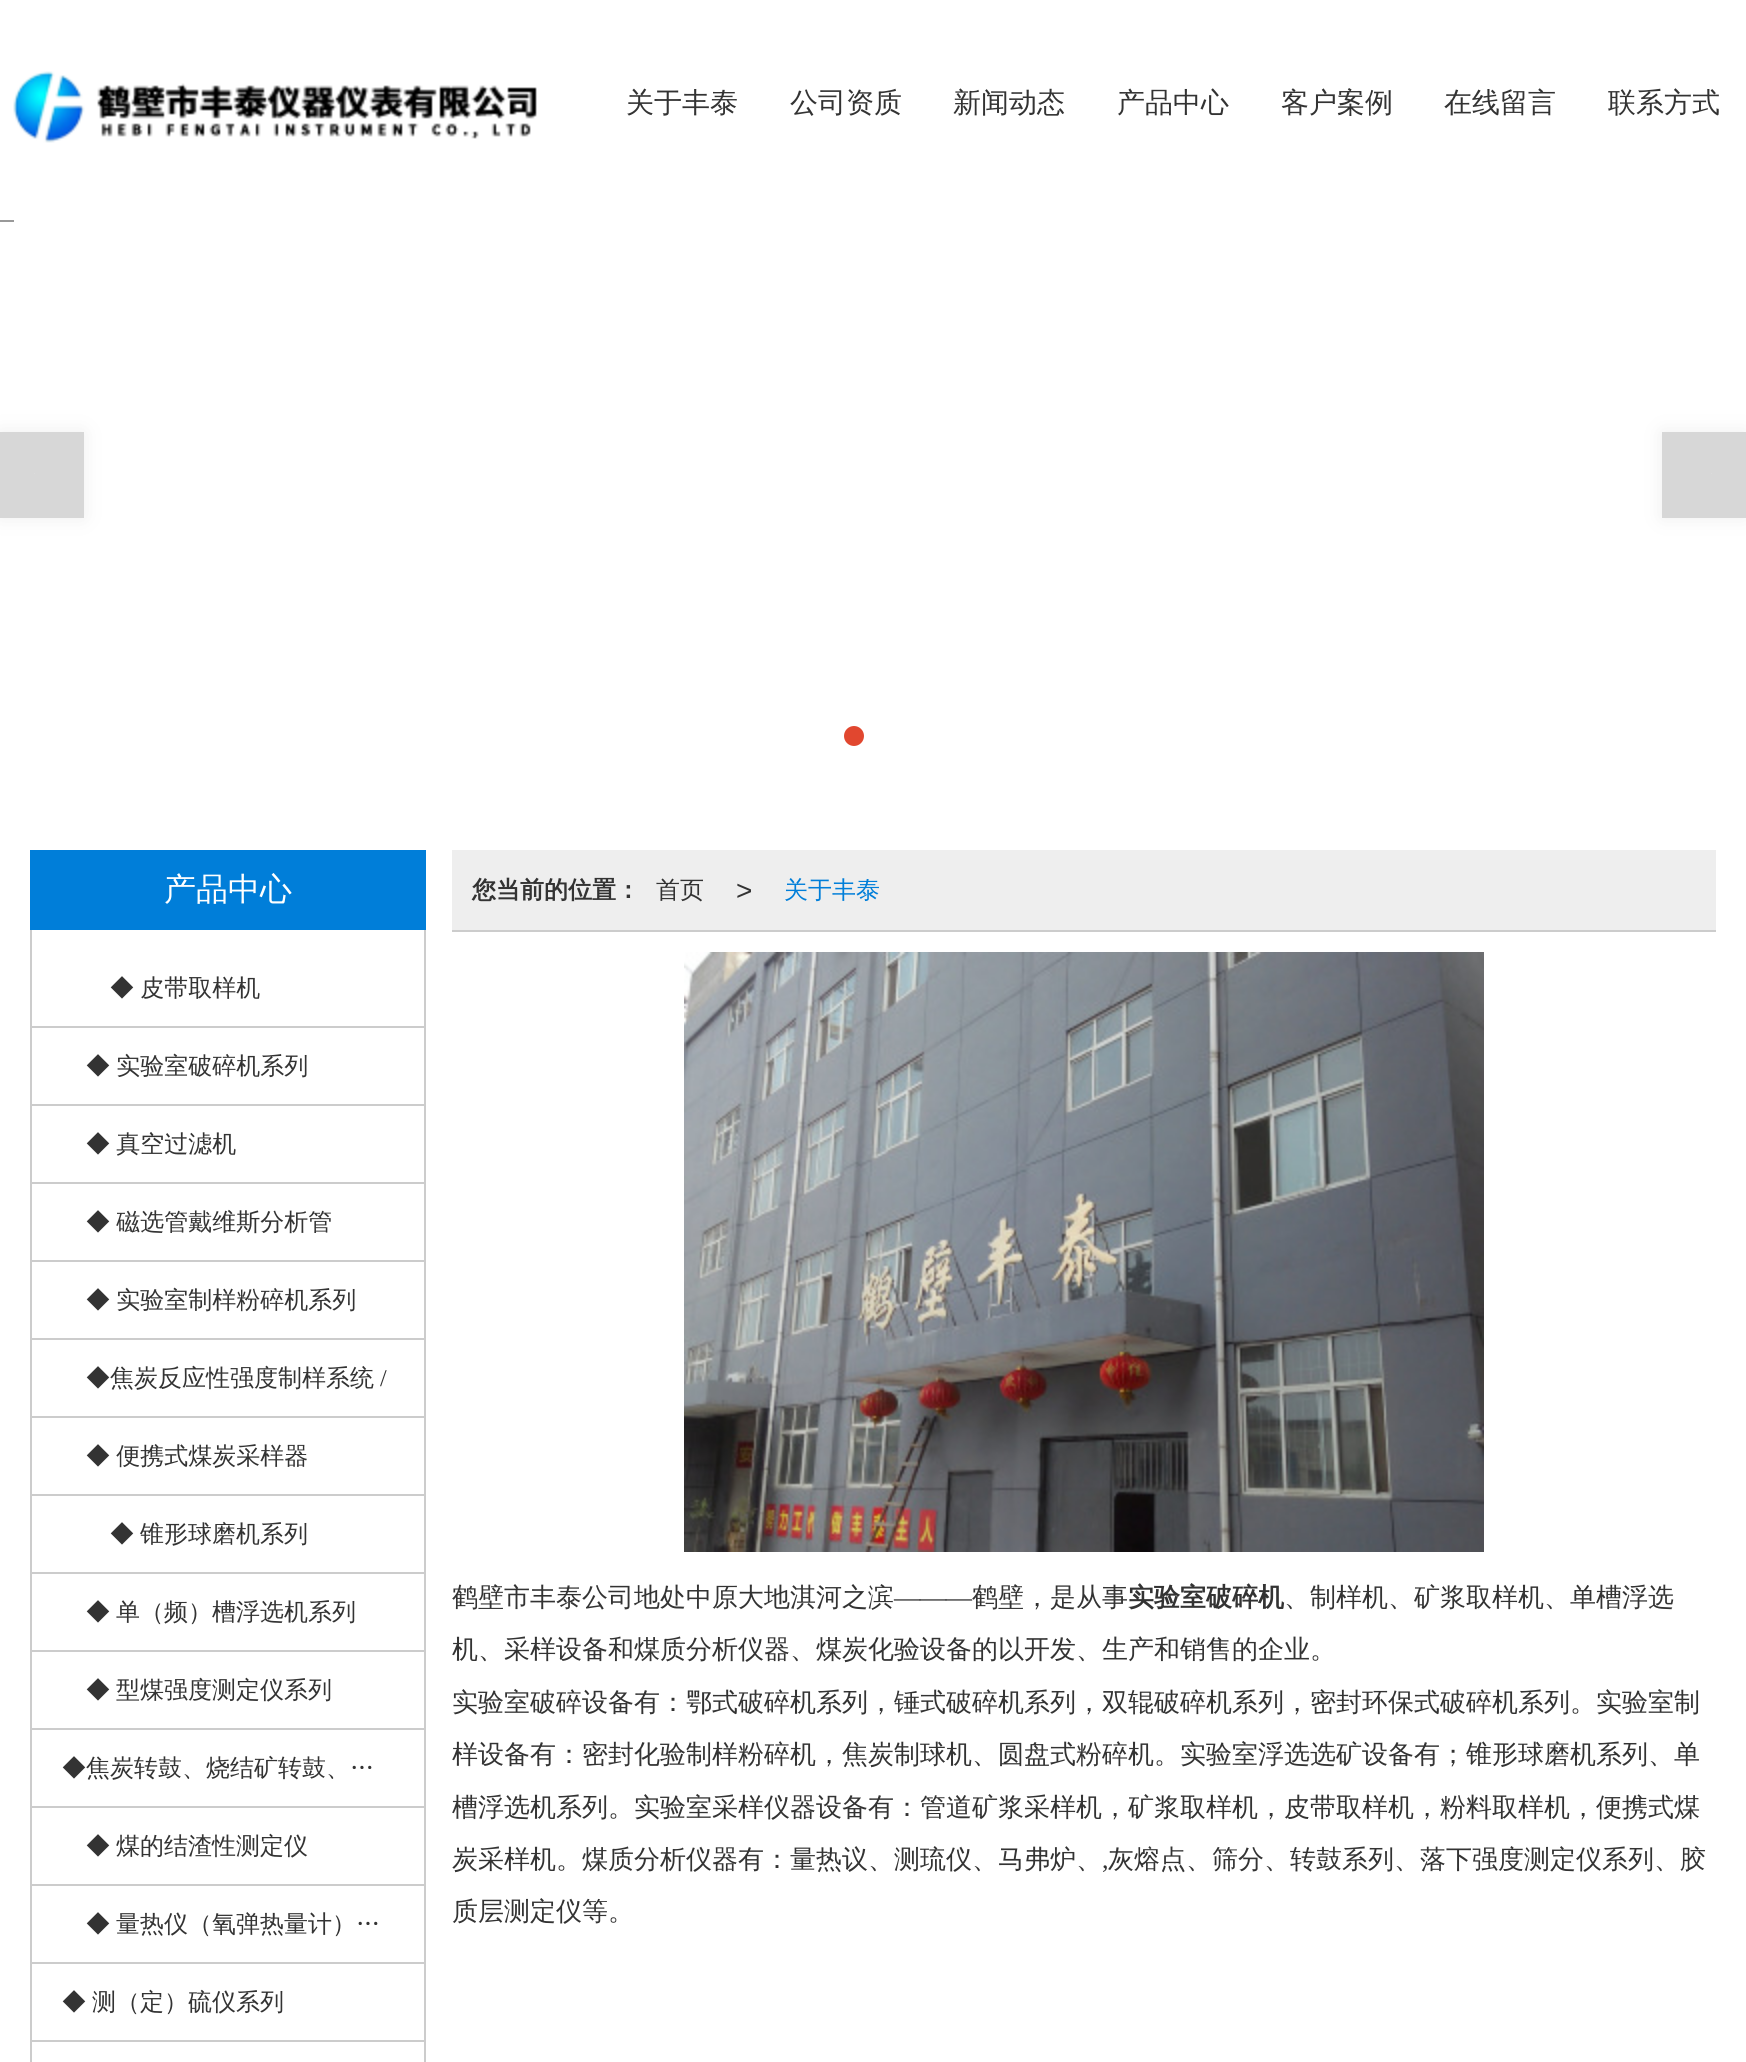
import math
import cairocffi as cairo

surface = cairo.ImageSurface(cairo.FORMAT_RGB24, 1746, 2062)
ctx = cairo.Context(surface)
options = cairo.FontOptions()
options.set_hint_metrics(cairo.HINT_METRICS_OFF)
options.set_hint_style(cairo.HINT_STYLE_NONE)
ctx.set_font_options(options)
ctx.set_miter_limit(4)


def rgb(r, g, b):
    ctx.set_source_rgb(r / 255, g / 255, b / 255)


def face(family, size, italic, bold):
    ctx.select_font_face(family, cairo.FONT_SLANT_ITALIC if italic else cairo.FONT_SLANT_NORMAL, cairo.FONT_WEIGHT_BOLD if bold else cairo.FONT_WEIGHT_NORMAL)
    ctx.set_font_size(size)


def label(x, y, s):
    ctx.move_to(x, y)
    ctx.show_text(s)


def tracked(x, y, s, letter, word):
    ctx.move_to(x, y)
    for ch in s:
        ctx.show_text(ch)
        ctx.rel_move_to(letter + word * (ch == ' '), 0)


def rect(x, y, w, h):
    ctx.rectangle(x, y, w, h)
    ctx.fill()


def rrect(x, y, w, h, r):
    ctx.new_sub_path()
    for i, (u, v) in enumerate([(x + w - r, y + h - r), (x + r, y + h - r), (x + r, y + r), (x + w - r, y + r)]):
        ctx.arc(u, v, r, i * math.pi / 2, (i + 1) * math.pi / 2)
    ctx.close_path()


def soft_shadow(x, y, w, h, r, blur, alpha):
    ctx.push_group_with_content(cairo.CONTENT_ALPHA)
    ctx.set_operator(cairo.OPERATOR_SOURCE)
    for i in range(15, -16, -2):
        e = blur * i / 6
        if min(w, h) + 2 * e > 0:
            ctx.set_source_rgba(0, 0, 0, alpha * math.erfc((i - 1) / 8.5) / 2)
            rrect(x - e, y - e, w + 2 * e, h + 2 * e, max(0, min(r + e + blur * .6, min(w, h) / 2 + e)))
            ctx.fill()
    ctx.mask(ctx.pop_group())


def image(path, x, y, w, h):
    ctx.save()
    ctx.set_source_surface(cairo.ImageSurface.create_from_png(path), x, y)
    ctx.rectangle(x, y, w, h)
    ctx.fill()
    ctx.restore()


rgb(255, 255, 255)
ctx.paint()
image('image0.png', 13, 71, 524, 72)
face('WenQuanYi Zen Hei Medium', 28, 0, 0)
rgb(51, 51, 51)
label(626, 112, '关于丰泰')
label(790, 112, '公司资质')
label(953, 112, '新闻动态')
label(1117, 112, '产品中心')
label(1281, 112, '客户案例')
label(1444, 112, '在线留言')
label(1608, 112, '联系方式')
rgb(153, 153, 153)
rect(0, 220, 14, 2)
rgb(204, 204, 204)
soft_shadow(0, 432, 84, 86, 0, 10, 0.3)
rgb(215, 215, 215)
rect(0, 432, 84, 86)
rgb(219, 219, 219)
rect(34, 473, 1, 1)
rgb(204, 204, 204)
soft_shadow(1662, 432, 84, 86, 0, 10, 0.3)
rgb(215, 215, 215)
rect(1662, 432, 84, 86)
rgb(219, 219, 219)
rect(1711, 473, 1, 1)
rgb(225, 71, 47)
ctx.arc(854, 736, 10, 0, 2 * math.pi)
ctx.fill()
rgb(0, 126, 217)
rect(30, 850, 396, 80)
face('WenQuanYi Zen Hei Medium', 32, 0, 0)
rgb(255, 255, 255)
label(164, 900, '产品中心')
rgb(204, 204, 204)
rect(424, 930, 2, 1132)
rect(30, 930, 2, 1132)
rect(32, 1026, 392, 2)
face('WenQuanYi Zen Hei Medium', 24, 0, 0)
rgb(51, 51, 51)
tracked(110, 996, '◆ 皮带取样机', 0, -1)
rgb(204, 204, 204)
rect(32, 1104, 392, 2)
rgb(51, 51, 51)
tracked(86, 1074, '◆ 实验室破碎机系列', 0, -1)
rgb(204, 204, 204)
rect(32, 1182, 392, 2)
rgb(51, 51, 51)
tracked(86, 1152, '◆ 真空过滤机', 0, -1)
rgb(204, 204, 204)
rect(32, 1260, 392, 2)
rgb(51, 51, 51)
tracked(86, 1230, '◆ 磁选管戴维斯分析管', 0, -1)
rgb(204, 204, 204)
rect(32, 1338, 392, 2)
rgb(51, 51, 51)
tracked(86, 1308, '◆ 实验室制样粉碎机系列', 0, -1)
rgb(204, 204, 204)
rect(32, 1416, 392, 2)
rgb(51, 51, 51)
label(86, 1386, '◆焦炭反应性强度制样系统')
face('Liberation Serif', 24, 0, 0)
label(380, 1386, '/')
rgb(204, 204, 204)
rect(32, 1494, 392, 2)
face('WenQuanYi Zen Hei Medium', 24, 0, 0)
rgb(51, 51, 51)
tracked(86, 1464, '◆ 便携式煤炭采样器', 0, -1)
rgb(204, 204, 204)
rect(32, 1572, 392, 2)
rgb(51, 51, 51)
label(110, 1542, '◆')
label(140, 1542, '锥形球磨机系列')
rgb(204, 204, 204)
rect(32, 1650, 392, 2)
rgb(51, 51, 51)
label(86, 1620, '◆')
label(116, 1620, '单（频）槽浮选机系列')
rgb(204, 204, 204)
rect(32, 1728, 392, 2)
rgb(51, 51, 51)
label(86, 1698, '◆')
label(116, 1698, '型煤强度测定仪系列')
rgb(204, 204, 204)
rect(32, 1806, 392, 2)
rgb(51, 51, 51)
label(62, 1776, '◆焦炭转鼓、烧结矿转鼓、…')
rgb(204, 204, 204)
rect(32, 1884, 392, 2)
rgb(51, 51, 51)
label(86, 1854, '◆')
label(116, 1854, '煤的结渣性测定仪')
rgb(204, 204, 204)
rect(32, 1962, 392, 2)
rgb(51, 51, 51)
label(86, 1932, '◆')
label(116, 1932, '量热仪（氧弹热量计）…')
rgb(204, 204, 204)
rect(32, 2040, 392, 2)
rgb(51, 51, 51)
label(62, 2010, '◆')
label(92, 2010, '测（定）硫仪系列')
rgb(238, 238, 238)
rect(452, 850, 1264, 80)
rgb(204, 204, 204)
rect(452, 930, 1264, 2)
face('WenQuanYi Zen Hei', 24, 0, 1)
rgb(51, 51, 51)
label(472, 898, '您当前的位置：')
face('WenQuanYi Zen Hei Medium', 24, 0, 0)
label(656, 898, '首页')
face('Liberation Sans', 28, 0, 0)
label(736, 900, '>')
face('WenQuanYi Zen Hei Medium', 24, 0, 0)
rgb(0, 126, 217)
label(784, 898, '关于丰泰')
image('image1.png', 684, 952, 800, 600)
face('WenQuanYi Zen Hei Medium', 26, 0, 0)
rgb(51, 51, 51)
label(452, 1606, '鹤壁市丰泰公司地处中原大地淇河之滨')
face('Liberation Serif', 26, 0, 0)
label(894, 1606, '———')
face('WenQuanYi Zen Hei Medium', 26, 0, 0)
label(972, 1606, '鹤壁，是从事')
face('WenQuanYi Zen Hei', 26, 0, 1)
label(1128, 1606, '实验室破碎机')
face('WenQuanYi Zen Hei Medium', 26, 0, 0)
label(1284, 1606, '、制样机、矿浆取样机、单槽浮选')
label(452, 1658, '机、采样设备和煤质分析仪器、煤炭化验设备的以开发、生产和销售的企业。')
label(452, 1711, '实验室破碎设备有：鄂式破碎机系列，锤式破碎机系列，双辊破碎机系列，密封环保式破碎机系列。实验室制')
label(452, 1763, '样设备有：密封化验制样粉碎机，焦炭制球机、圆盘式粉碎机。实验室浮选选矿设备有；锥形球磨机系列、单')
label(452, 1816, '槽浮选机系列。实验室采样仪器设备有：管道矿浆采样机，矿浆取样机，皮带取样机，粉料取样机，便携式煤')
label(452, 1868, '炭采样机。煤质分析仪器有：量热议、测琉仪、马弗炉、')
face('Liberation Serif', 26, 0, 0)
label(1102, 1868, ',')
face('WenQuanYi Zen Hei Medium', 26, 0, 0)
label(1108, 1868, '灰熔点、筛分、转鼓系列、落下强度测定仪系列、胶')
label(452, 1920, '质层测定仪等。')
surface.write_to_png('render.png')
